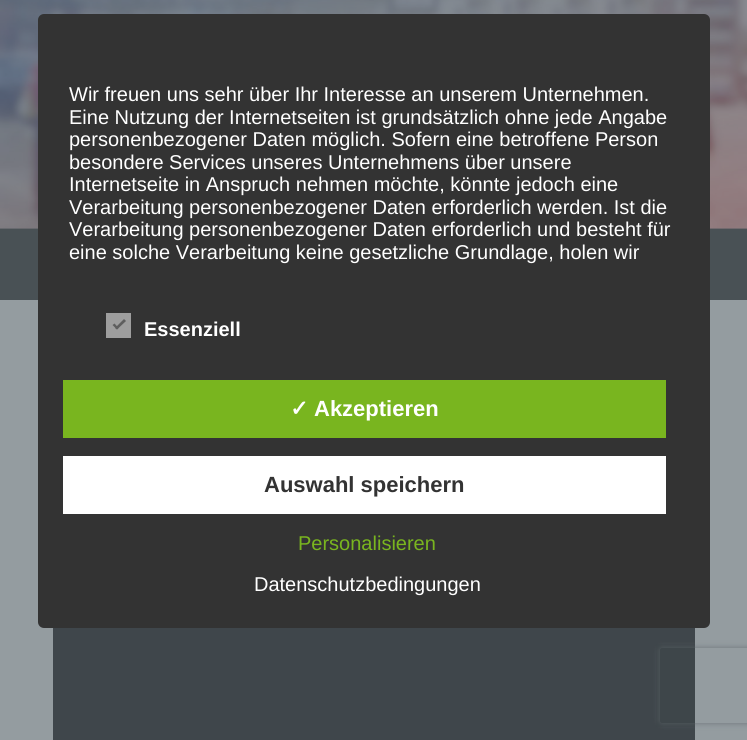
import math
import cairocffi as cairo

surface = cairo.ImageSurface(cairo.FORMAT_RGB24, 747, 740)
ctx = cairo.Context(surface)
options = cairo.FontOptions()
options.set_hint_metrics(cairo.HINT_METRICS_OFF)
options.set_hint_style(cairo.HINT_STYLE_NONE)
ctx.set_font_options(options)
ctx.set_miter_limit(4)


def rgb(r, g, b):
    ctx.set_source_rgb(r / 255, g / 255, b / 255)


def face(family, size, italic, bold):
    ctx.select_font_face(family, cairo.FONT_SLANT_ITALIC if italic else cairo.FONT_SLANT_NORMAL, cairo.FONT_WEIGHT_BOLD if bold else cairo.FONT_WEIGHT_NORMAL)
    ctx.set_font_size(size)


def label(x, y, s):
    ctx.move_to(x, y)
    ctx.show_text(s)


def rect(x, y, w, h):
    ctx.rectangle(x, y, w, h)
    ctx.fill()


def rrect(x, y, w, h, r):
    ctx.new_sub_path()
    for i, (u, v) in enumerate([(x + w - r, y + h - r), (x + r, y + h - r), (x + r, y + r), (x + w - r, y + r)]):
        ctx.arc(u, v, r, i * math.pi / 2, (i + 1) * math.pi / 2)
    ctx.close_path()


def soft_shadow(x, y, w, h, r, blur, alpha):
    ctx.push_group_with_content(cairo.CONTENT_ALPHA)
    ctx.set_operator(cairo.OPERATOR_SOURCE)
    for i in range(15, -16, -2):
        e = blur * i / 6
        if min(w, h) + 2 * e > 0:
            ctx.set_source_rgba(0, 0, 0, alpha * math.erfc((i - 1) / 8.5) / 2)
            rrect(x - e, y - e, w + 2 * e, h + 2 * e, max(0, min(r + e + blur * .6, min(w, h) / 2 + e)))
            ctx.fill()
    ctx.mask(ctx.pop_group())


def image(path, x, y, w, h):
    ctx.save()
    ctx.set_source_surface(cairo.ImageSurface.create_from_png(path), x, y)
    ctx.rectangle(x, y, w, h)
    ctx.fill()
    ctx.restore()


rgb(148, 156, 160)
ctx.paint()
rgb(76, 84, 89)
rect(0, 228, 747, 1)
image('image0.png', 0, 0, 747, 229)
rgb(73, 81, 85)
rect(0, 229, 747, 71)
rgb(63, 70, 75)
rect(53, 628, 642, 112)
ctx.save()
ctx.set_fill_rule(cairo.FILL_RULE_EVEN_ODD)
ctx.new_path()
ctx.move_to(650, 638)
ctx.line_to(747, 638)
ctx.line_to(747, 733)
ctx.line_to(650, 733)
ctx.close_path()
ctx.move_to(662.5, 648)
ctx.line_to(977.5, 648)
ctx.curve_to(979, 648, 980, 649, 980, 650.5)
ctx.line_to(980, 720.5)
ctx.curve_to(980, 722, 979, 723, 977.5, 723)
ctx.line_to(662.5, 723)
ctx.curve_to(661, 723, 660, 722, 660, 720.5)
ctx.line_to(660, 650.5)
ctx.curve_to(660, 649, 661, 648, 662.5, 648)
ctx.close_path()
ctx.clip()
rgb(109, 116, 121)
soft_shadow(660, 648, 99, 75, 2.5, 3, 1)
ctx.restore()
ctx.set_source_rgba(0.247, 0.275, 0.294, 0.5)
rect(656, 644, 39, 83)
rgb(51, 51, 51)
rrect(38, 14, 672, 614, 6)
ctx.fill()
face('Liberation Sans', 20, 0, 0)
rgb(255, 255, 255)
label(69, 101, 'Wir freuen uns sehr über Ihr Interesse an unserem Unternehmen.')
label(69, 124, 'Eine Nutzung der Internetseiten ist grundsätzlich ohne jede Angabe')
label(69, 146, 'personenbezogener Daten möglich. Sofern eine betroffene Person')
label(69, 169, 'besondere Services unseres Unternehmens über unsere')
label(69, 191, 'Internetseite in Anspruch nehmen möchte, könnte jedoch eine')
label(69, 214, 'Verarbeitung personenbezogener Daten erforderlich werden. Ist die')
label(69, 236, 'Verarbeitung personenbezogener Daten erforderlich und besteht für')
label(69, 259, 'eine solche Verarbeitung keine gesetzliche Grundlage, holen wir')
rgb(158, 158, 158)
rect(106, 313, 25, 25)
rgb(94, 94, 94)
ctx.new_path()
ctx.move_to(124, 319)
ctx.line_to(126, 321)
ctx.line_to(117, 329.5)
ctx.line_to(115, 328)
ctx.close_path()
ctx.fill()
ctx.new_path()
ctx.move_to(114.5, 323.5)
ctx.line_to(118.5, 328)
ctx.line_to(117, 329.5)
ctx.line_to(112.5, 325)
ctx.close_path()
ctx.fill()
face('Liberation Sans', 20, 0, 1)
rgb(255, 255, 255)
label(144, 336, 'Essenziell')
rgb(121, 181, 31)
rect(63, 380, 603, 58)
face('DejaVu Sans', 22, 0, 1)
rgb(255, 255, 255)
label(290, 416, '✓')
face('Liberation Sans', 22, 0, 1)
label(314, 416, 'Akzeptieren')
rect(63, 456, 603, 58)
rgb(51, 51, 51)
label(264, 492, 'Auswahl speichern')
face('Liberation Sans', 20, 0, 0)
rgb(121, 181, 31)
label(298, 550, 'Personalisieren')
rgb(255, 255, 255)
label(254, 591, 'Datenschutzbedingungen')
surface.write_to_png('render.png')
